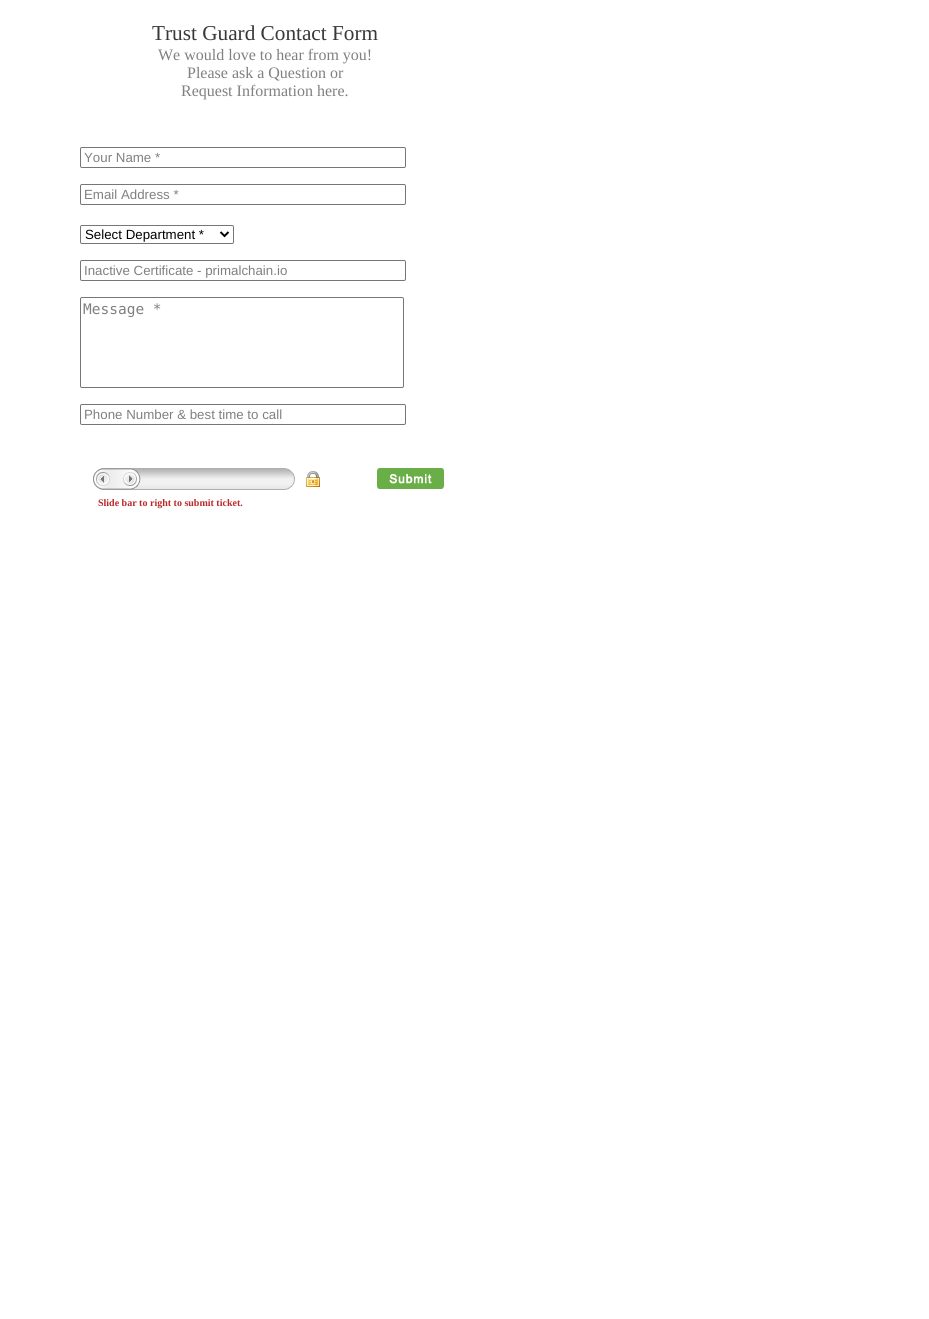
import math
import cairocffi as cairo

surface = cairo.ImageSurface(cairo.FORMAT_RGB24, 929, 1319)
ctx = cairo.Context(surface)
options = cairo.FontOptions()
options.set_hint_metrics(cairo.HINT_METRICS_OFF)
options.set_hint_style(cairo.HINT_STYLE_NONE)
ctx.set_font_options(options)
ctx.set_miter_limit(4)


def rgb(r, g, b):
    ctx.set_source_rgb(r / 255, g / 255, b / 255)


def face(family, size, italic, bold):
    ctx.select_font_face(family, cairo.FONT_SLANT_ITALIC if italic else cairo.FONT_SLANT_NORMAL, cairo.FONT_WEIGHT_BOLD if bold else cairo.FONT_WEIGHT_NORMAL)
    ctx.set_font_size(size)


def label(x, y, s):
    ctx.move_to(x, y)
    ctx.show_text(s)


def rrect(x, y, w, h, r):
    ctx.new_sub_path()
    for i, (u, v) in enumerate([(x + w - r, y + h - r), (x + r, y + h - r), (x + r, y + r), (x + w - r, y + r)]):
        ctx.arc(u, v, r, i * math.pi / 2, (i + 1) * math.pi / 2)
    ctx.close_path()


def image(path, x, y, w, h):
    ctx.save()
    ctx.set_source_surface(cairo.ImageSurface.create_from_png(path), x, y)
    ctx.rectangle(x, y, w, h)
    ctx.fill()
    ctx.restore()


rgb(255, 255, 255)
ctx.paint()
face('Liberation Serif', 21.25, 0, 0)
rgb(56, 56, 56)
label(152, 40, 'Trust Guard Contact Form')
face('Liberation Serif', 16, 0, 0)
rgb(128, 128, 128)
label(158, 60, 'We would love to hear from you!')
label(187, 78, 'Please ask a Question or')
label(181, 96, 'Request Information here.')
rrect(80.5, 147.5, 325, 20, 1.5)
rgb(118, 118, 118)
ctx.set_line_width(1)
ctx.stroke()
face('Liberation Sans', 13.3, 0, 0)
rgb(128, 128, 128)
label(84, 162, 'Your Name *')
rrect(80.5, 184.5, 325, 20, 1.5)
rgb(118, 118, 118)
ctx.stroke()
rgb(128, 128, 128)
label(84, 199, 'Email Address *')
rrect(80.5, 225.5, 153, 18, 1.5)
rgb(118, 118, 118)
ctx.stroke()
ctx.new_path()
ctx.move_to(220.5, 232)
ctx.line_to(224.5, 236)
ctx.line_to(228.5, 232)
rgb(0, 0, 0)
ctx.set_line_width(2)
ctx.stroke()
label(85, 239, 'Select Department *')
rrect(80.5, 260.5, 325, 20, 1.5)
rgb(118, 118, 118)
ctx.set_line_width(1)
ctx.stroke()
rgb(128, 128, 128)
label(84, 275, 'Inactive Certificate - primalchain.io')
rrect(80.5, 297.5, 323, 90, 1.5)
rgb(118, 118, 118)
ctx.stroke()
face('DejaVu Sans Mono', 14.5, 0, 0)
rgb(128, 128, 128)
label(83, 314, 'Message *')
rrect(80.5, 404.5, 325, 20, 1.5)
rgb(118, 118, 118)
ctx.stroke()
face('Liberation Sans', 13.3, 0, 0)
rgb(128, 128, 128)
label(84, 419, 'Phone Number & best time to call')
image('image0.png', 377, 468, 67, 21)
image('image1.png', 93, 468, 202, 22)
image('image2.png', 93, 468, 48, 22)
image('image3.png', 306, 471, 14, 16)
face('Liberation Serif', 10, 0, 1)
rgb(187, 40, 40)
label(98, 506, 'Slide bar to right to submit ticket.')
surface.write_to_png('render.png')
